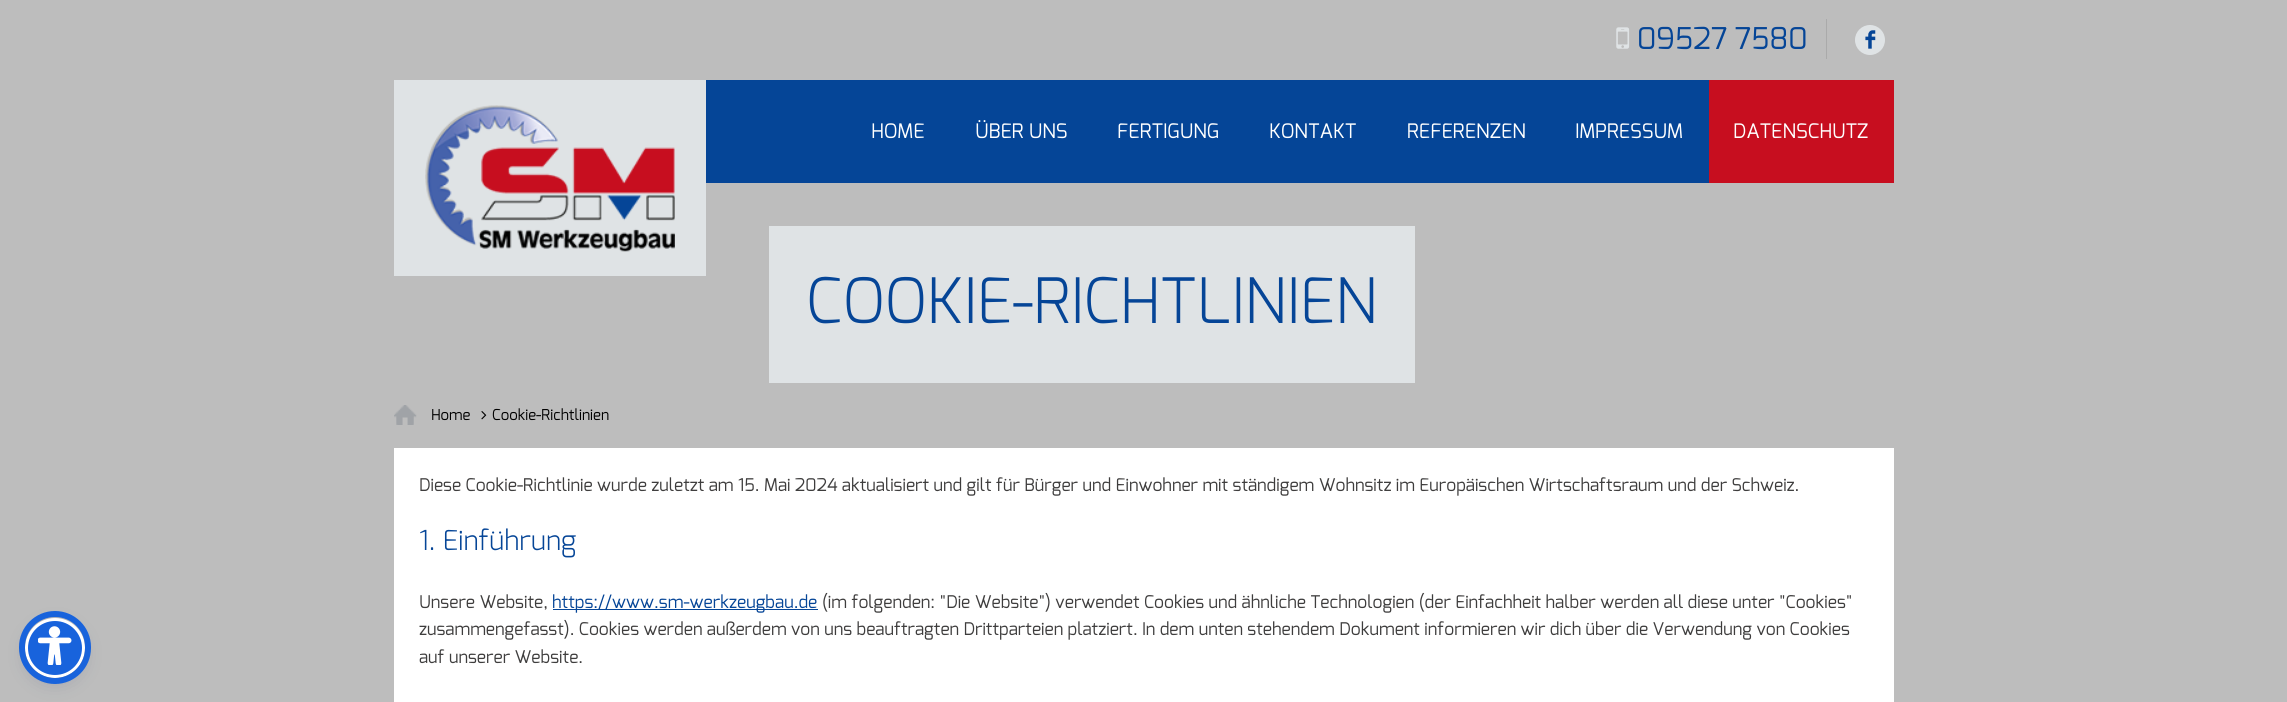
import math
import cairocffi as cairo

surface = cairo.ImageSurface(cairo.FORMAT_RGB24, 2287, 702)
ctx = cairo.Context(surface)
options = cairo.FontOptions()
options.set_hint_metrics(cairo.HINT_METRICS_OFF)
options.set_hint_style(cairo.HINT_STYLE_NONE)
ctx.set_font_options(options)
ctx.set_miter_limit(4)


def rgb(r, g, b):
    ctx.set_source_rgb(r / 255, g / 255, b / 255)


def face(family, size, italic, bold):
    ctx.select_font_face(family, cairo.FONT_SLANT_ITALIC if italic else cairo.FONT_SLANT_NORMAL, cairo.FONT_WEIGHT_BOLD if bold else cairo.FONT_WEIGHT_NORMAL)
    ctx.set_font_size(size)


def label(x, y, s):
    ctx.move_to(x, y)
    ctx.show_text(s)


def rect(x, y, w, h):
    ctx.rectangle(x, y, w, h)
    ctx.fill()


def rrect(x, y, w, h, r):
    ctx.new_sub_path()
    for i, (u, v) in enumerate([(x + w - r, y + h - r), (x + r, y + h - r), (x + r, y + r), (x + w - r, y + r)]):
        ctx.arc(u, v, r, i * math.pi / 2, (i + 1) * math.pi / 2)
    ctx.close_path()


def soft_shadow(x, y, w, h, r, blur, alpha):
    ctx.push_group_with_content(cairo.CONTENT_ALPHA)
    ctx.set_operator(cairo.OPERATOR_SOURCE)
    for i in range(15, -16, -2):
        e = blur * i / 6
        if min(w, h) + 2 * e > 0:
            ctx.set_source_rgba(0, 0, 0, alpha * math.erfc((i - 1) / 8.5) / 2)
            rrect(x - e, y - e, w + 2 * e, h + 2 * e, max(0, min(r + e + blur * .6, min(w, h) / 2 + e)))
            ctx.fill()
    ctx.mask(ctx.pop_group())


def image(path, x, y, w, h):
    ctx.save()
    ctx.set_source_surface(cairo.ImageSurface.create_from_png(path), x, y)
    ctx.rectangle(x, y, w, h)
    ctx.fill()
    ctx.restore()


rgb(189, 189, 189)
ctx.paint()
rgb(170, 170, 170)
rect(1826, 19, 1, 40)
image('image0.png', 1616, 27, 14, 22)
face('Exo', 30, 0, 0)
rgb(5, 69, 151)
label(1637, 49, '09527 7580')
rgb(223, 227, 229)
ctx.new_path()
ctx.arc(1870, 40, 15, 0, 2 * math.pi)
ctx.fill()
face('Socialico', 30, 0, 0)
rgb(5, 69, 151)
label(1864, 50, 'F')
rect(706, 80, 1003, 103)
rgb(223, 227, 229)
rect(394, 80, 312, 196)
image('image1.png', 425, 105, 250, 147)
face('Exo', 20, 0, 0)
rgb(255, 255, 255)
label(871, 138, 'HOME')
label(975, 138, 'ÜBER UNS')
label(1117, 138, 'FERTIGUNG')
label(1269, 138, 'KONTAKT')
label(1407, 138, 'REFERENZEN')
label(1575, 138, 'IMPRESSUM')
rgb(199, 14, 31)
rect(1709, 80, 185, 103)
rgb(255, 255, 255)
label(1733, 138, 'DATENSCHUTZ')
rgb(223, 227, 229)
rect(769, 226, 646, 157)
face('Exo Light', 62.5, 0, 0)
rgb(5, 69, 151)
label(806, 323, 'COOKIE-RICHTLINIEN')
image('image2.png', 394, 405, 23, 20)
face('Exo', 15, 0, 0)
rgb(0, 0, 0)
label(431, 420, 'Home')
image('image3.png', 481, 411, 6, 9)
label(492, 420, 'Cookie-Richtlinien')
rgb(93, 100, 148)
soft_shadow(25, 620, 60, 60, 30, 2.5, 0.2)
rgb(37, 44, 97)
soft_shadow(25, 624, 60, 60, 30, 9.5, 0.15)
rgb(24, 99, 220)
ctx.arc(55, 648, 28.5, 0, 2 * math.pi)
ctx.fill_preserve()
rgb(255, 255, 255)
ctx.set_line_width(3)
ctx.stroke()
rrect(22, 614, 66, 67, 33)
rgb(24, 99, 220)
ctx.set_line_width(6)
ctx.stroke()
image('image4.png', 38, 626, 34, 39)
rgb(255, 255, 255)
rect(394, 448, 1500, 254)
face('Exo', 17.5, 0, 0)
rgb(62, 61, 61)
label(419, 491, 'Diese Cookie-Richtlinie wurde zuletzt am 15. Mai 2024 aktualisiert und gilt für Bürger und Einwohner mit ständigem Wohnsitz im Europäischen Wirtschaftsraum und der Schweiz.')
face('Exo Light', 27.5, 0, 0)
rgb(5, 69, 151)
label(419, 550, '1. Einführung')
face('Exo', 17.5, 0, 0)
rgb(62, 61, 61)
label(419, 608, 'Unsere Website,')
rgb(5, 69, 151)
rect(553, 609, 265, 1)
label(552, 608, 'https://www.sm-werkzeugbau.de')
rgb(62, 61, 61)
label(822, 608, '(im folgenden: "Die Website") verwendet Cookies und ähnliche Technologien (der Einfachheit halber werden all diese unter "Cookies"')
label(419, 635, 'zusammengefasst). Cookies werden außerdem von uns beauftragten Drittparteien platziert. In dem unten stehendem Dokument informieren wir dich über die Verwendung von Cookies')
label(419, 663, 'auf unserer Website.')
surface.write_to_png('render.png')
